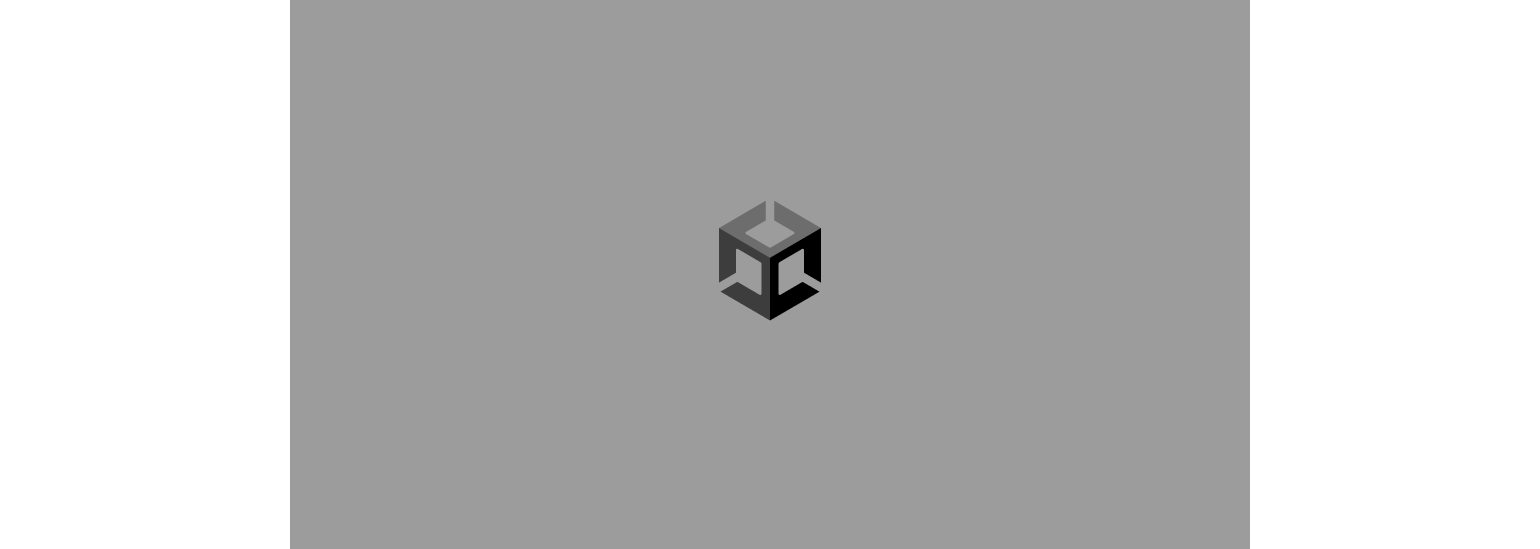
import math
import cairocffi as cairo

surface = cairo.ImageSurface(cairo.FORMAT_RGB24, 1540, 549)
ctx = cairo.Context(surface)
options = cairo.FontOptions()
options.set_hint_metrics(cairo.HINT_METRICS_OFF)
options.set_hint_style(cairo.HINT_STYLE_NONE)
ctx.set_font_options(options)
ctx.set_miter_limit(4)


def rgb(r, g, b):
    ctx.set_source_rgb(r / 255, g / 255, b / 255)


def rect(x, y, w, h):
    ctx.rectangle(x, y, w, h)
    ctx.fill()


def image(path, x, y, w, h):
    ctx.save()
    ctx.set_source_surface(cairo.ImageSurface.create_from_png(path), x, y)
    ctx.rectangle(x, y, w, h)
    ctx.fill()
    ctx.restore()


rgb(255, 255, 255)
ctx.paint()
rgb(156, 156, 156)
rect(290, 0, 960, 549)
image('image0.png', 719, 201, 102, 120)
surface.write_to_png('render.png')
